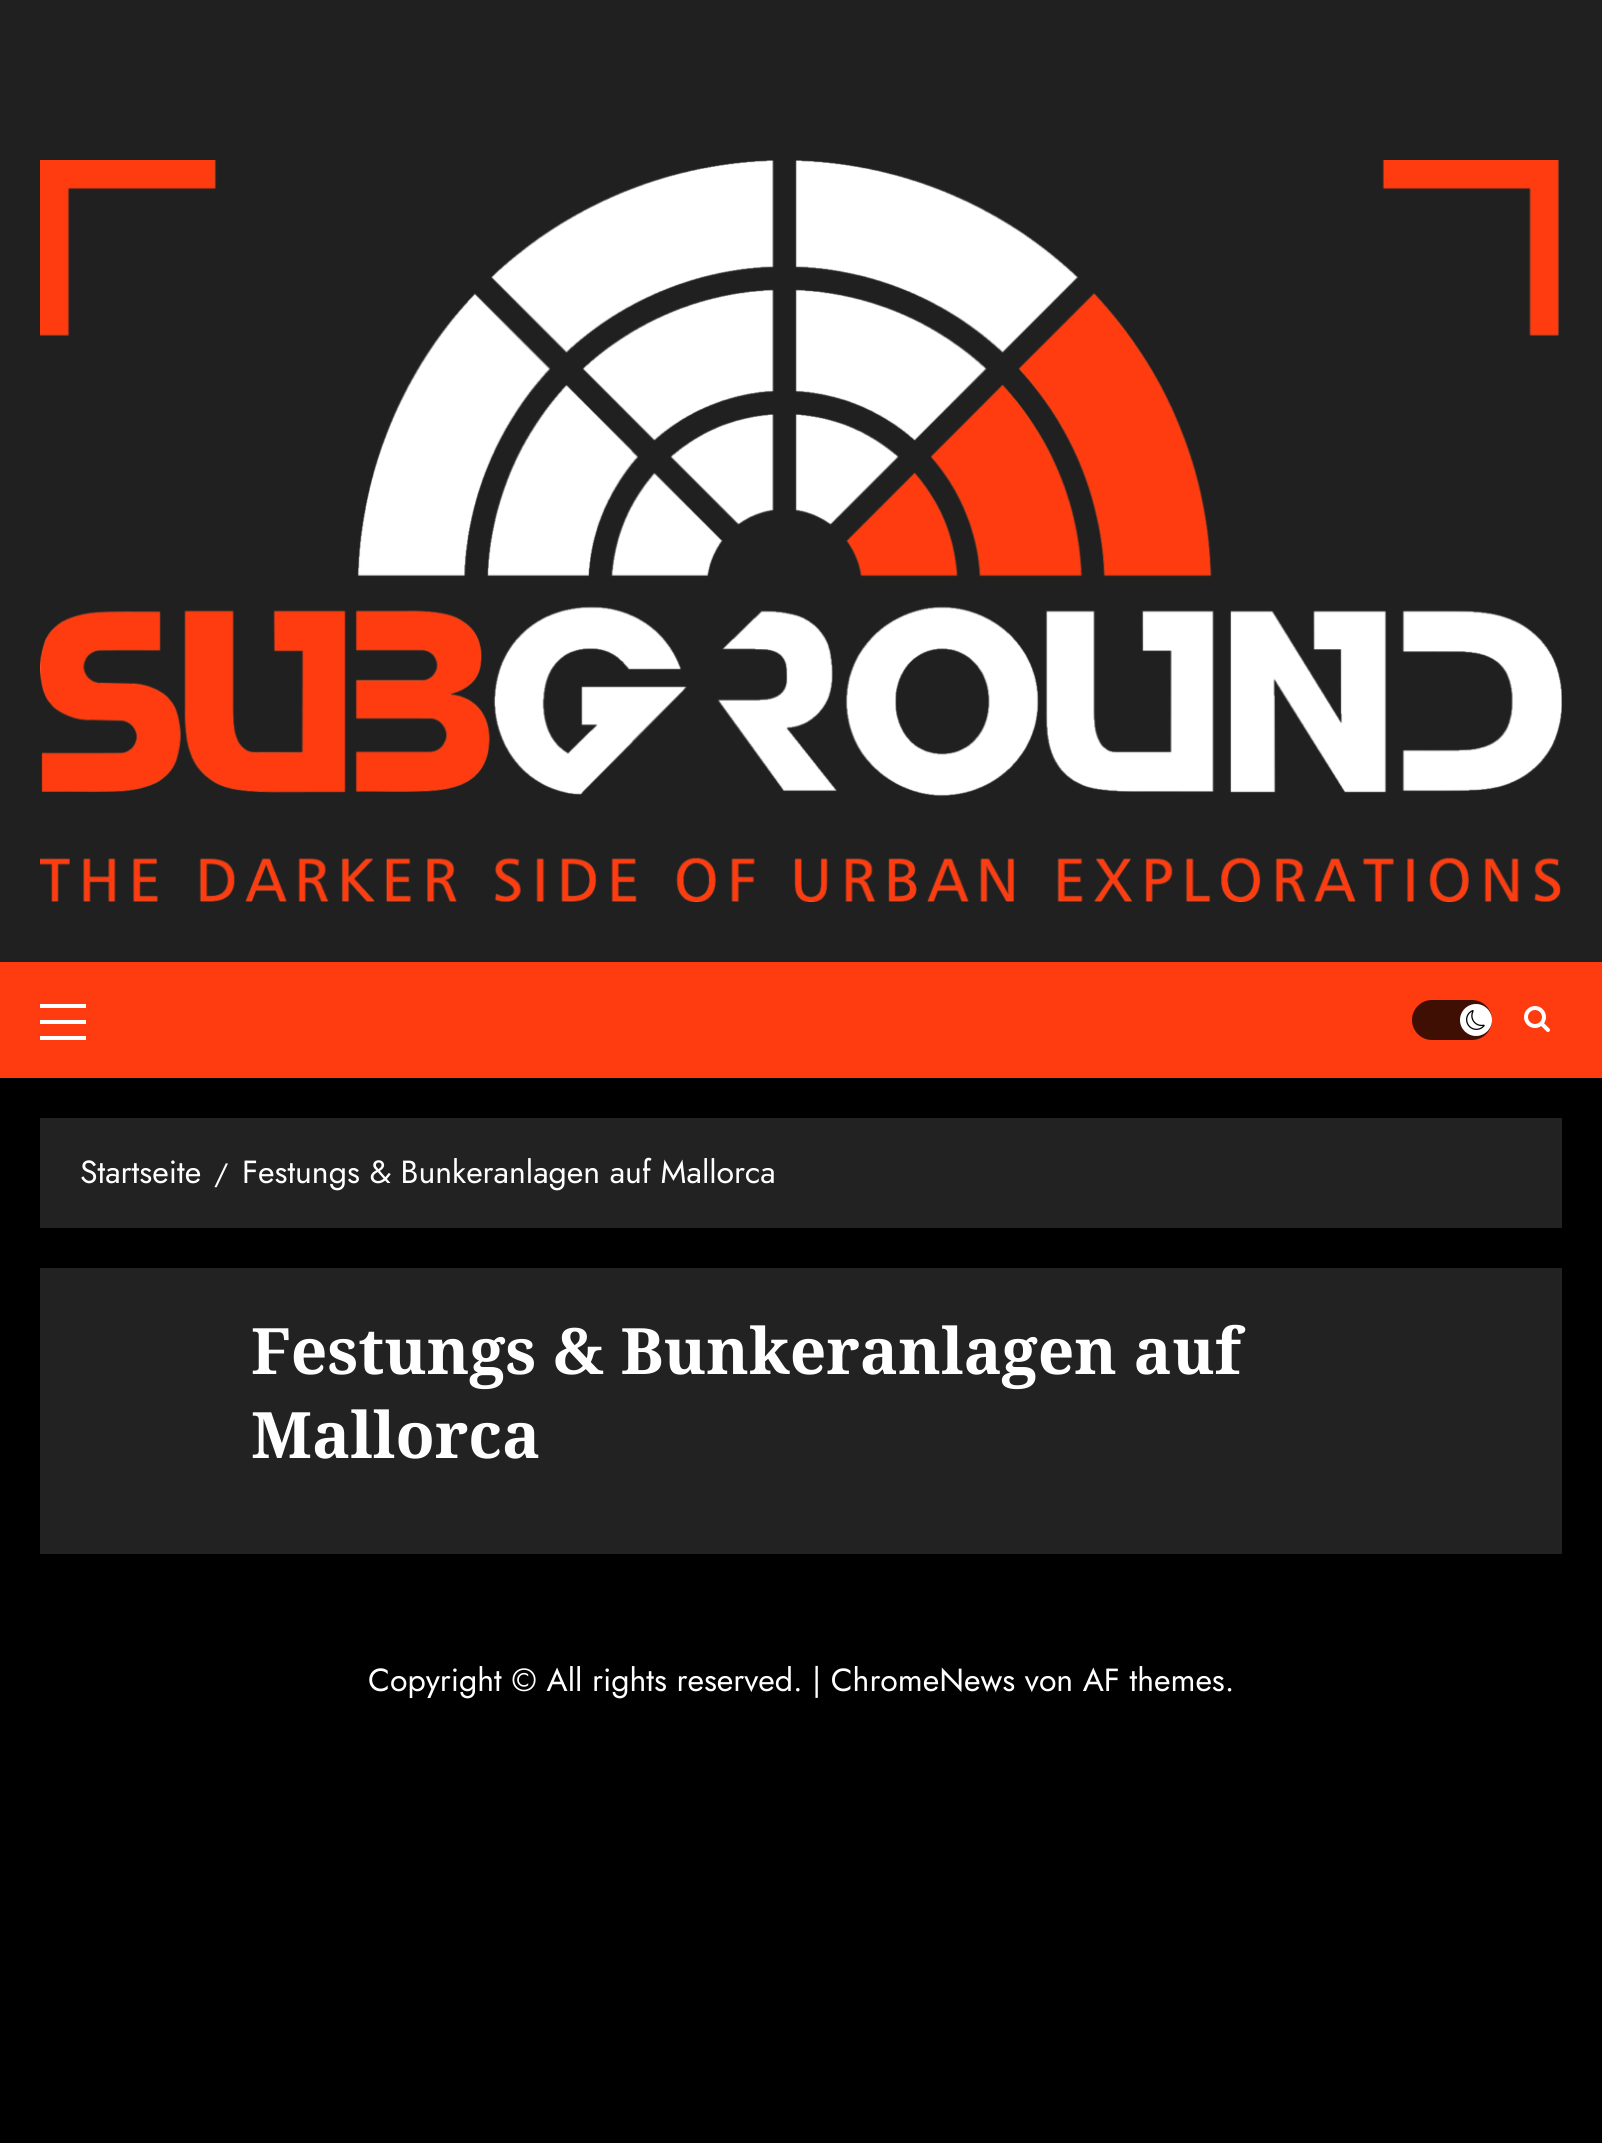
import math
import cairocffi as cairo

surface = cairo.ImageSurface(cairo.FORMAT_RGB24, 1602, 2143)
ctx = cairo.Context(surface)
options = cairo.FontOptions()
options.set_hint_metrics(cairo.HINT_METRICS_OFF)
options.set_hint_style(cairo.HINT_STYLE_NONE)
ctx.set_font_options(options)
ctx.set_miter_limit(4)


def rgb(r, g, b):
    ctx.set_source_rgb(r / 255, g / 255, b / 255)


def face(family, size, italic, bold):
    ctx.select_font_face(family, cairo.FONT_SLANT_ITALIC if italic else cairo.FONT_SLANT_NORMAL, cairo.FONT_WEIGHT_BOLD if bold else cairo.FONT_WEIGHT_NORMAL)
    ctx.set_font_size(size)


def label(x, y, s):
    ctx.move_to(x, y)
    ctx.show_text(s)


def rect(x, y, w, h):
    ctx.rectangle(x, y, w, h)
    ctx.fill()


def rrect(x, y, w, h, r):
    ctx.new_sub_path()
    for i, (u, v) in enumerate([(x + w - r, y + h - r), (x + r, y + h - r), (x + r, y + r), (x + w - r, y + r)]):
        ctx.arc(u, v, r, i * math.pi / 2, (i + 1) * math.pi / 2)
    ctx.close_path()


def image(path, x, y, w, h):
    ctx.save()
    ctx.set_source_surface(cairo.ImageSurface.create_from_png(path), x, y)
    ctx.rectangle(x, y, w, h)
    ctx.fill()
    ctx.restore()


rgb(0, 0, 0)
ctx.paint()
rgb(32, 32, 32)
rect(0, 0, 1602, 962)
image('image0.png', 40, 160, 1522, 742)
rgb(255, 60, 16)
rect(0, 962, 1602, 116)
rgb(255, 255, 255)
rect(40, 1020, 46, 4)
rect(40, 1004, 46, 4)
rect(40, 1036, 46, 4)
rgb(64, 15, 4)
rrect(1412, 1000, 80, 40, 20)
ctx.fill()
rgb(255, 255, 255)
ctx.arc(1476, 1020, 16, 0, 2 * math.pi)
ctx.fill()
image('image1.png', 1466, 1010, 19, 20)
image('image2.png', 1524, 1006, 26, 26)
rgb(34, 34, 34)
rect(40, 1118, 1522, 110)
face('Jost', 32, 0, 0)
rgb(255, 255, 255)
label(80, 1183, 'Startseite')
face('Jost', 28, 0, 0)
label(214, 1183, '/')
face('Jost', 32, 0, 0)
label(242, 1183, 'Festungs & Bunkeranlagen auf Mallorca')
rgb(34, 34, 34)
rect(40, 1268, 1522, 286)
face('Noto Serif', 64, 0, 1)
rgb(255, 255, 255)
label(251, 1374, 'Festungs & Bunkeranlagen auf')
label(251, 1458, 'Mallorca')
face('Jost', 32, 0, 0)
label(368, 1691, 'Copyright © All rights reserved. | ChromeNews von AF themes.')
surface.write_to_png('render.png')
